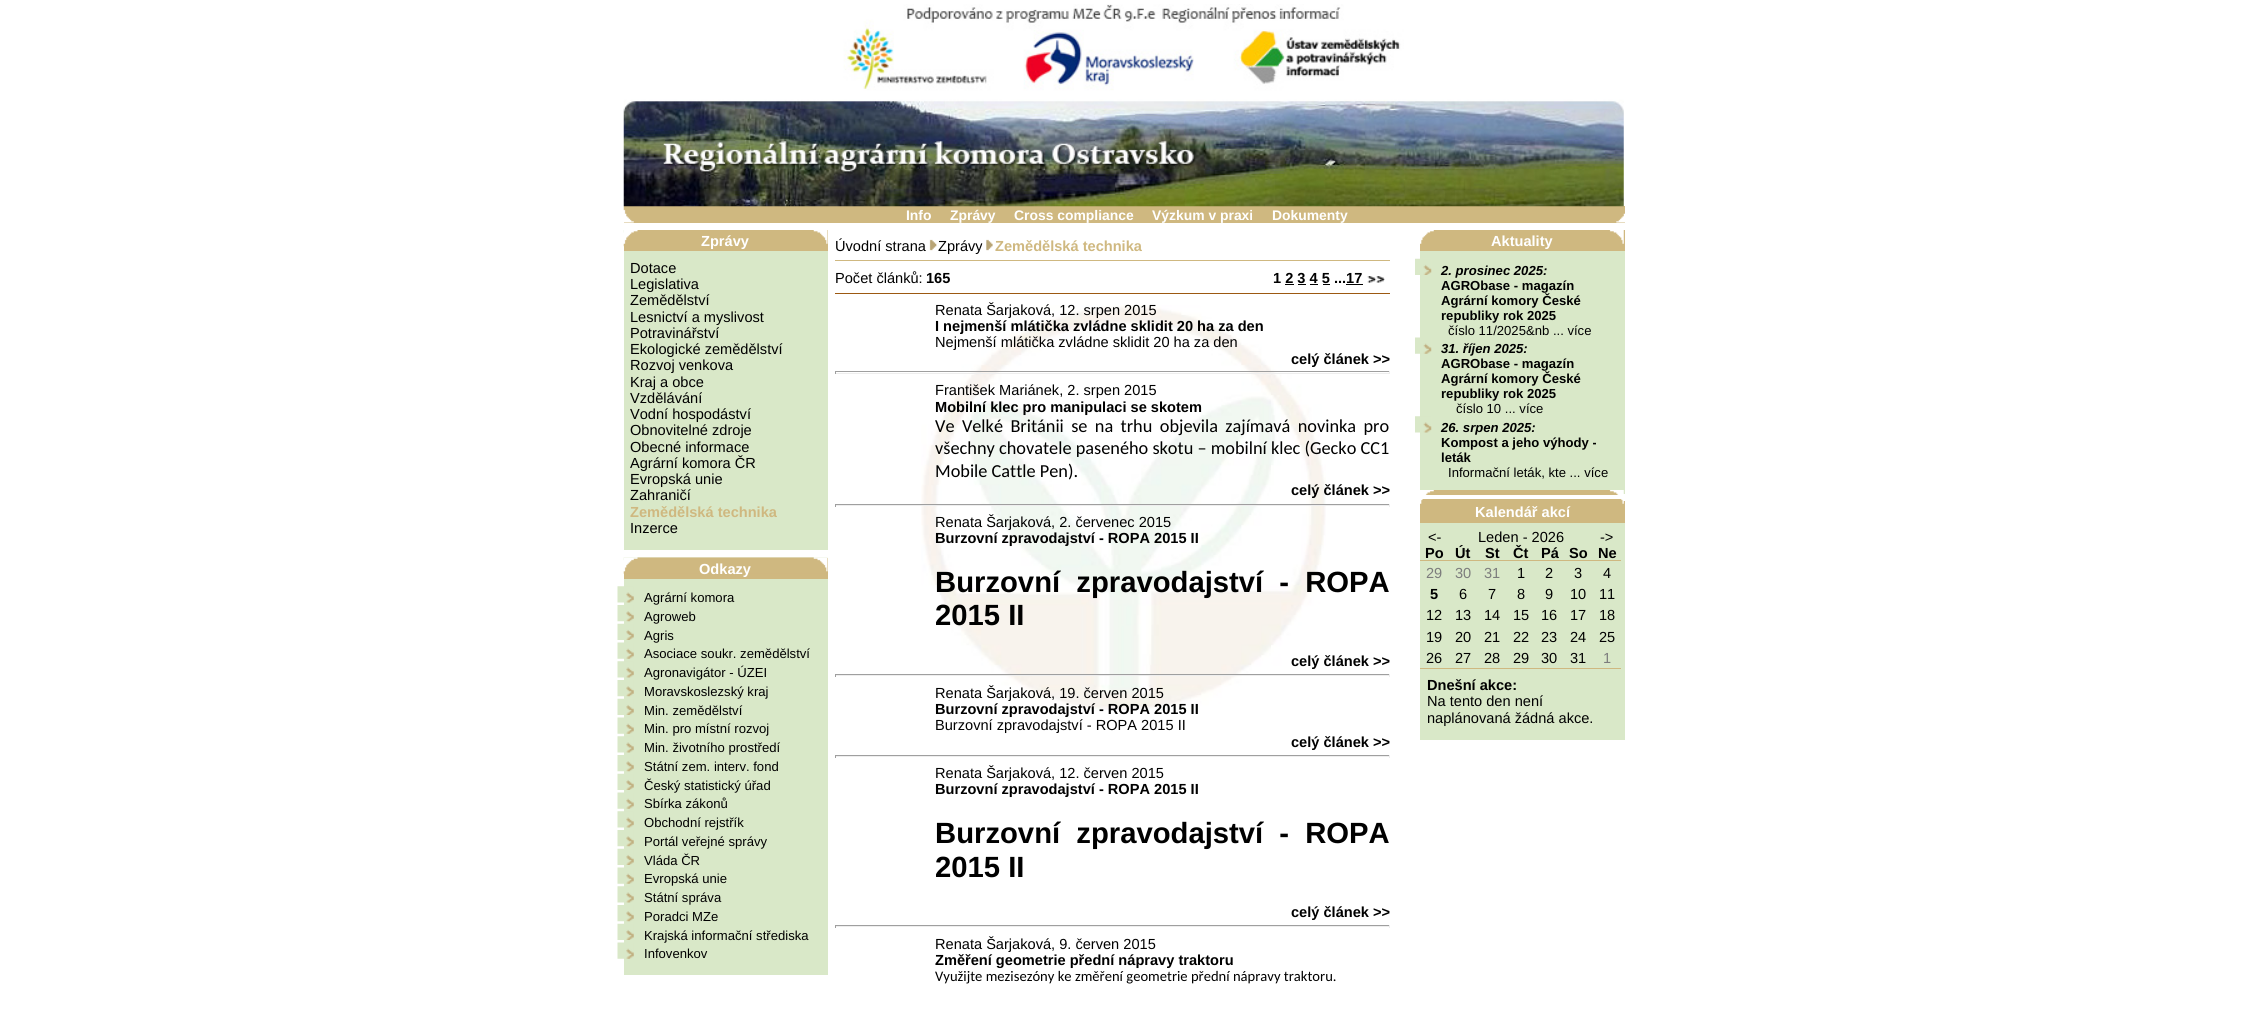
import math
import cairocffi as cairo

surface = cairo.ImageSurface(cairo.FORMAT_RGB24, 2247, 1017)
ctx = cairo.Context(surface)
options = cairo.FontOptions()
options.set_hint_metrics(cairo.HINT_METRICS_OFF)
options.set_hint_style(cairo.HINT_STYLE_NONE)
ctx.set_font_options(options)
ctx.set_miter_limit(4)


def rgb(r, g, b):
    ctx.set_source_rgb(r / 255, g / 255, b / 255)


def face(family, size, italic, bold):
    ctx.select_font_face(family, cairo.FONT_SLANT_ITALIC if italic else cairo.FONT_SLANT_NORMAL, cairo.FONT_WEIGHT_BOLD if bold else cairo.FONT_WEIGHT_NORMAL)
    ctx.set_font_size(size)


def label(x, y, s):
    ctx.move_to(x, y)
    ctx.show_text(s)


def tracked(x, y, s, letter, word):
    ctx.move_to(x, y)
    for ch in s:
        ctx.show_text(ch)
        ctx.rel_move_to(letter + word * (ch == ' '), 0)


def rect(x, y, w, h):
    ctx.rectangle(x, y, w, h)
    ctx.fill()


def image(path, x, y, w, h):
    ctx.save()
    ctx.set_source_surface(cairo.ImageSurface.create_from_png(path), x, y)
    ctx.rectangle(x, y, w, h)
    ctx.fill()
    ctx.restore()


rgb(255, 255, 255)
ctx.paint()
image('image0.png', 921, 305, 405, 405)
rgb(207, 184, 128)
rect(624, 206, 1001, 17)
image('image2.png', 623, 206, 1002, 17)
image('image1.png', 623, 4, 1001, 203)
face('Liberation Sans', 13.9, 0, 1)
rgb(255, 255, 255)
label(906, 220, 'Info')
label(950, 220, 'Zprávy')
label(1014, 220, 'Cross compliance')
label(1152, 220, 'Výzkum v praxi')
label(1272, 220, 'Dokumenty')
rgb(217, 232, 200)
rect(624, 251, 204, 299)
image('image3.png', 623, 230, 1, 17)
rgb(207, 184, 128)
rect(624, 230, 204, 21)
image('image4.png', 623, 230, 205, 17)
face('Liberation Sans', 14.6, 0, 1)
rgb(255, 255, 255)
label(701, 246, 'Zprávy')
face('Liberation Sans', 14.6, 0, 0)
rgb(0, 0, 0)
label(630, 273, 'Dotace')
label(630, 289, 'Legislativa')
label(630, 305, 'Zemědělství')
label(630, 322, 'Lesnictví a myslivost')
label(630, 338, 'Potravinářství')
label(630, 354, 'Ekologické zemědělství')
label(630, 370, 'Rozvoj venkova')
label(630, 387, 'Kraj a obce')
label(630, 403, 'Vzdělávání')
label(630, 419, 'Vodní hospodáství')
label(630, 435, 'Obnovitelné zdroje')
label(630, 452, 'Obecné informace')
label(630, 468, 'Agrární komora ČR')
label(630, 484, 'Evropská unie')
label(630, 500, 'Zahraničí')
face('Liberation Sans', 14.6, 0, 1)
rgb(207, 184, 128)
label(630, 517, 'Zemědělská technika')
face('Liberation Sans', 14.6, 0, 0)
rgb(0, 0, 0)
label(630, 533, 'Inzerce')
rgb(217, 232, 200)
rect(624, 579, 204, 396)
image('image5.png', 623, 557, 205, 17)
rgb(207, 184, 128)
rect(624, 558, 204, 21)
image('image6.png', 623, 557, 205, 17)
face('Liberation Sans', 14.6, 0, 1)
rgb(255, 255, 255)
label(699, 574, 'Odkazy')
image('image7.png', 617, 586, 17, 17)
face('Liberation Sans', 13.1, 0, 0)
rgb(0, 0, 0)
label(644, 602, 'Agrární komora')
image('image8.png', 617, 605, 17, 17)
label(644, 621, 'Agroweb')
image('image9.png', 617, 623, 17, 17)
label(644, 640, 'Agris')
image('image10.png', 617, 642, 17, 17)
label(644, 658, 'Asociace soukr. zemědělství')
image('image11.png', 617, 661, 17, 17)
label(644, 677, 'Agronavigátor - ÚZEI')
image('image8.png', 617, 680, 17, 17)
label(644, 696, 'Moravskoslezský kraj')
image('image9.png', 617, 698, 17, 17)
label(644, 715, 'Min. zemědělství')
image('image10.png', 617, 717, 17, 17)
label(644, 733, 'Min. pro místní rozvoj')
image('image11.png', 617, 736, 17, 17)
label(644, 752, 'Min. životního prostředí')
image('image8.png', 617, 755, 17, 17)
label(644, 771, 'Státní zem. interv. fond')
image('image12.png', 617, 773, 17, 17)
label(644, 790, 'Český statistický úřad')
image('image10.png', 617, 792, 17, 17)
label(644, 808, 'Sbírka zákonů')
image('image11.png', 617, 811, 17, 17)
label(644, 827, 'Obchodní rejstřík')
image('image8.png', 617, 830, 17, 17)
label(644, 846, 'Portál veřejné správy')
image('image9.png', 617, 848, 17, 17)
label(644, 865, 'Vláda ČR')
image('image10.png', 617, 867, 17, 17)
label(644, 883, 'Evropská unie')
image('image11.png', 617, 886, 17, 17)
label(644, 902, 'Státní správa')
image('image8.png', 617, 905, 17, 17)
label(644, 921, 'Poradci MZe')
image('image9.png', 617, 923, 17, 17)
label(644, 940, 'Krajská informační střediska')
image('image10.png', 617, 942, 17, 17)
label(644, 958, 'Infovenkov')
rgb(207, 184, 128)
rect(835, 260, 555, 1)
face('Liberation Sans', 14.6, 0, 0)
rgb(0, 0, 0)
label(835, 251, 'Úvodní strana')
image('image13.png', 929, 239, 8, 12)
label(938, 251, 'Zprávy')
image('image14.png', 982, 239, 11, 12)
face('Liberation Sans', 14.6, 0, 1)
rgb(207, 184, 128)
label(995, 251, 'Zemědělská technika')
rgb(156, 89, 18)
rect(835, 293, 555, 1)
face('Liberation Sans', 14.6, 0, 0)
rgb(0, 0, 0)
label(835, 283, 'Počet článků:')
face('Liberation Sans', 14.6, 0, 1)
label(926, 283, '165')
label(1273, 283, '1 2 3 4 5 ...17')
rect(1285, 284, 9, 1)
rect(1298, 284, 8, 1)
rect(1310, 284, 8, 1)
rect(1323, 284, 7, 1)
rect(1346, 284, 17, 1)
image('image15.png', 1367, 276, 18, 7)
face('Liberation Sans', 14.6, 0, 0)
label(935, 315, 'Renata Šarjaková, 12. srpen 2015')
face('Liberation Sans', 14.6, 0, 1)
label(935, 331, 'I nejmenší mlátička zvládne sklidit 20 ha za den')
face('Liberation Sans', 14.6, 0, 0)
label(935, 347, 'Nejmenší mlátička zvládne sklidit 20 ha za den')
face('Liberation Sans', 14.6, 0, 1)
label(1291, 364, 'celý článek >>')
rgb(159, 159, 159)
rect(835, 371, 555, 1)
rgb(238, 238, 238)
rect(1389, 371, 1, 3)
rect(835, 373, 555, 1)
rgb(159, 159, 159)
rect(835, 371, 1, 3)
face('Liberation Sans', 14.6, 0, 0)
rgb(0, 0, 0)
label(935, 395, 'František Mariánek, 2. srpen 2015')
face('Liberation Sans', 14.6, 0, 1)
label(935, 412, 'Mobilní klec pro manipulaci se skotem')
face('Carlito', 18.3, 0, 0)
tracked(935, 432, 'Ve Velké Británii se na trhu objevila zajímavá novinka pro', 0, 3.25)
label(935, 454, 'všechny chovatele paseného skotu – mobilní klec (Gecko CC1')
label(935, 477, 'Mobile Cattle Pen).')
face('Liberation Sans', 14.6, 0, 1)
label(1291, 495, 'celý článek >>')
rgb(159, 159, 159)
rect(835, 504, 555, 1)
rgb(238, 238, 238)
rect(1389, 504, 1, 3)
rect(835, 505, 555, 1)
rgb(159, 159, 159)
rect(835, 504, 1, 3)
face('Liberation Sans', 14.6, 0, 0)
rgb(0, 0, 0)
label(935, 527, 'Renata Šarjaková, 2. červenec 2015')
face('Liberation Sans', 14.6, 0, 1)
label(935, 543, 'Burzovní zpravodajství - ROPA 2015 II')
face('Liberation Sans', 29.25, 0, 1)
tracked(935, 592, 'Burzovní zpravodajství - ROPA', 0, 8)
label(935, 625, '2015 II')
face('Liberation Sans', 14.6, 0, 1)
label(1291, 666, 'celý článek >>')
rgb(159, 159, 159)
rect(835, 674, 555, 1)
rgb(238, 238, 238)
rect(1389, 674, 1, 3)
rect(835, 675, 555, 1)
rgb(159, 159, 159)
rect(835, 674, 1, 3)
face('Liberation Sans', 14.6, 0, 0)
rgb(0, 0, 0)
label(935, 698, 'Renata Šarjaková, 19. červen 2015')
face('Liberation Sans', 14.6, 0, 1)
label(935, 714, 'Burzovní zpravodajství - ROPA 2015 II')
face('Liberation Sans', 14.6, 0, 0)
label(935, 730, 'Burzovní zpravodajství - ROPA 2015 II')
face('Liberation Sans', 14.6, 0, 1)
label(1291, 747, 'celý článek >>')
rgb(159, 159, 159)
rect(835, 755, 555, 1)
rgb(238, 238, 238)
rect(1389, 755, 1, 3)
rect(835, 756, 555, 1)
rgb(159, 159, 159)
rect(835, 755, 1, 3)
face('Liberation Sans', 14.6, 0, 0)
rgb(0, 0, 0)
label(935, 778, 'Renata Šarjaková, 12. červen 2015')
face('Liberation Sans', 14.6, 0, 1)
label(935, 794, 'Burzovní zpravodajství - ROPA 2015 II')
face('Liberation Sans', 29.25, 0, 1)
tracked(935, 843, 'Burzovní zpravodajství - ROPA', 0, 8)
label(935, 877, '2015 II')
face('Liberation Sans', 14.6, 0, 1)
label(1291, 917, 'celý článek >>')
rgb(159, 159, 159)
rect(835, 925, 555, 1)
rgb(238, 238, 238)
rect(1389, 925, 1, 3)
rect(835, 926, 555, 1)
rgb(159, 159, 159)
rect(835, 925, 1, 3)
face('Liberation Sans', 14.6, 0, 0)
rgb(0, 0, 0)
label(935, 949, 'Renata Šarjaková, 9. červen 2015')
face('Liberation Sans', 14.6, 0, 1)
label(935, 965, 'Změření geometrie přední nápravy traktoru')
face('Carlito', 14.6, 0, 0)
label(935, 981, 'Využijte mezisezóny ke změření geometrie přední nápravy traktoru.')
rgb(217, 232, 200)
rect(1420, 251, 205, 243)
image('image16.png', 1420, 490, 204, 5)
rgb(207, 184, 128)
rect(1420, 230, 205, 21)
image('image17.png', 1420, 230, 204, 14)
face('Liberation Sans', 14.6, 0, 1)
rgb(255, 255, 255)
label(1491, 246, 'Aktuality')
image('image18.png', 1415, 258, 17, 17)
face('Liberation Sans', 13.1, 1, 1)
rgb(0, 0, 0)
label(1441, 275, '2. prosinec 2025:')
face('Liberation Sans', 13.1, 0, 1)
label(1441, 290, 'AGRObase - magazín')
label(1441, 305, 'Agrární komory České')
label(1441, 320, 'republiky rok 2025')
face('Liberation Sans', 13.1, 0, 0)
label(1448, 335, 'číslo 11/2025&nb ... více')
image('image19.png', 1415, 337, 17, 17)
face('Liberation Sans', 13.1, 1, 1)
label(1441, 353, '31. říjen 2025:')
face('Liberation Sans', 13.1, 0, 1)
label(1441, 368, 'AGRObase - magazín')
label(1441, 383, 'Agrární komory České')
label(1441, 398, 'republiky rok 2025')
face('Liberation Sans', 13.1, 0, 0)
label(1456, 413, 'číslo 10 ... více')
image('image20.png', 1415, 416, 17, 17)
face('Liberation Sans', 13.1, 1, 1)
label(1441, 432, '26. srpen 2025:')
face('Liberation Sans', 13.1, 0, 1)
label(1441, 447, 'Kompost a jeho výhody -')
label(1441, 462, 'leták')
face('Liberation Sans', 13.1, 0, 0)
label(1448, 477, 'Informační leták, kte ... více')
rgb(217, 232, 200)
rect(1420, 523, 205, 217)
rgb(207, 184, 128)
rect(1420, 501, 205, 22)
image('image21.png', 1420, 499, 204, 5)
face('Liberation Sans', 14.6, 0, 1)
rgb(255, 255, 255)
label(1475, 517, 'Kalendář akcí')
rgb(207, 184, 128)
rect(1420, 668, 201, 1)
face('Liberation Sans', 14.6, 0, 0)
rgb(0, 0, 0)
label(1428, 542, '<-')
label(1478, 542, 'Leden - 2026')
label(1600, 542, '->')
rgb(207, 184, 128)
rect(1420, 560, 201, 1)
face('Liberation Sans', 14.6, 0, 1)
rgb(0, 0, 0)
label(1425, 558, 'Po')
label(1455, 558, 'Út')
label(1485, 558, 'St')
label(1513, 558, 'Čt')
label(1541, 558, 'Pá')
label(1569, 558, 'So')
label(1598, 558, 'Ne')
face('Liberation Sans', 14.6, 0, 0)
rgb(124, 124, 124)
label(1426, 578, '29')
label(1455, 578, '30')
label(1484, 578, '31')
rgb(0, 0, 0)
label(1517, 578, '1')
label(1545, 578, '2')
label(1574, 578, '3')
label(1603, 578, '4')
face('Liberation Sans', 14.6, 0, 1)
label(1430, 599, '5')
face('Liberation Sans', 14.6, 0, 0)
label(1459, 599, '6')
label(1488, 599, '7')
label(1517, 599, '8')
label(1545, 599, '9')
label(1570, 599, '10')
label(1599, 599, '11')
label(1426, 620, '12')
label(1455, 620, '13')
label(1484, 620, '14')
label(1513, 620, '15')
label(1541, 620, '16')
label(1570, 620, '17')
label(1599, 620, '18')
label(1426, 642, '19')
label(1455, 642, '20')
label(1484, 642, '21')
label(1513, 642, '22')
label(1541, 642, '23')
label(1570, 642, '24')
label(1599, 642, '25')
label(1426, 663, '26')
label(1455, 663, '27')
label(1484, 663, '28')
label(1513, 663, '29')
label(1541, 663, '30')
label(1570, 663, '31')
rgb(124, 124, 124)
label(1603, 663, '1')
face('Liberation Sans', 14.6, 0, 1)
rgb(0, 0, 0)
label(1427, 690, 'Dnešní akce:')
face('Liberation Sans', 14.6, 0, 0)
label(1427, 706, 'Na tento den není')
label(1427, 723, 'naplánovaná žádná akce.')
surface.write_to_png('render.png')
